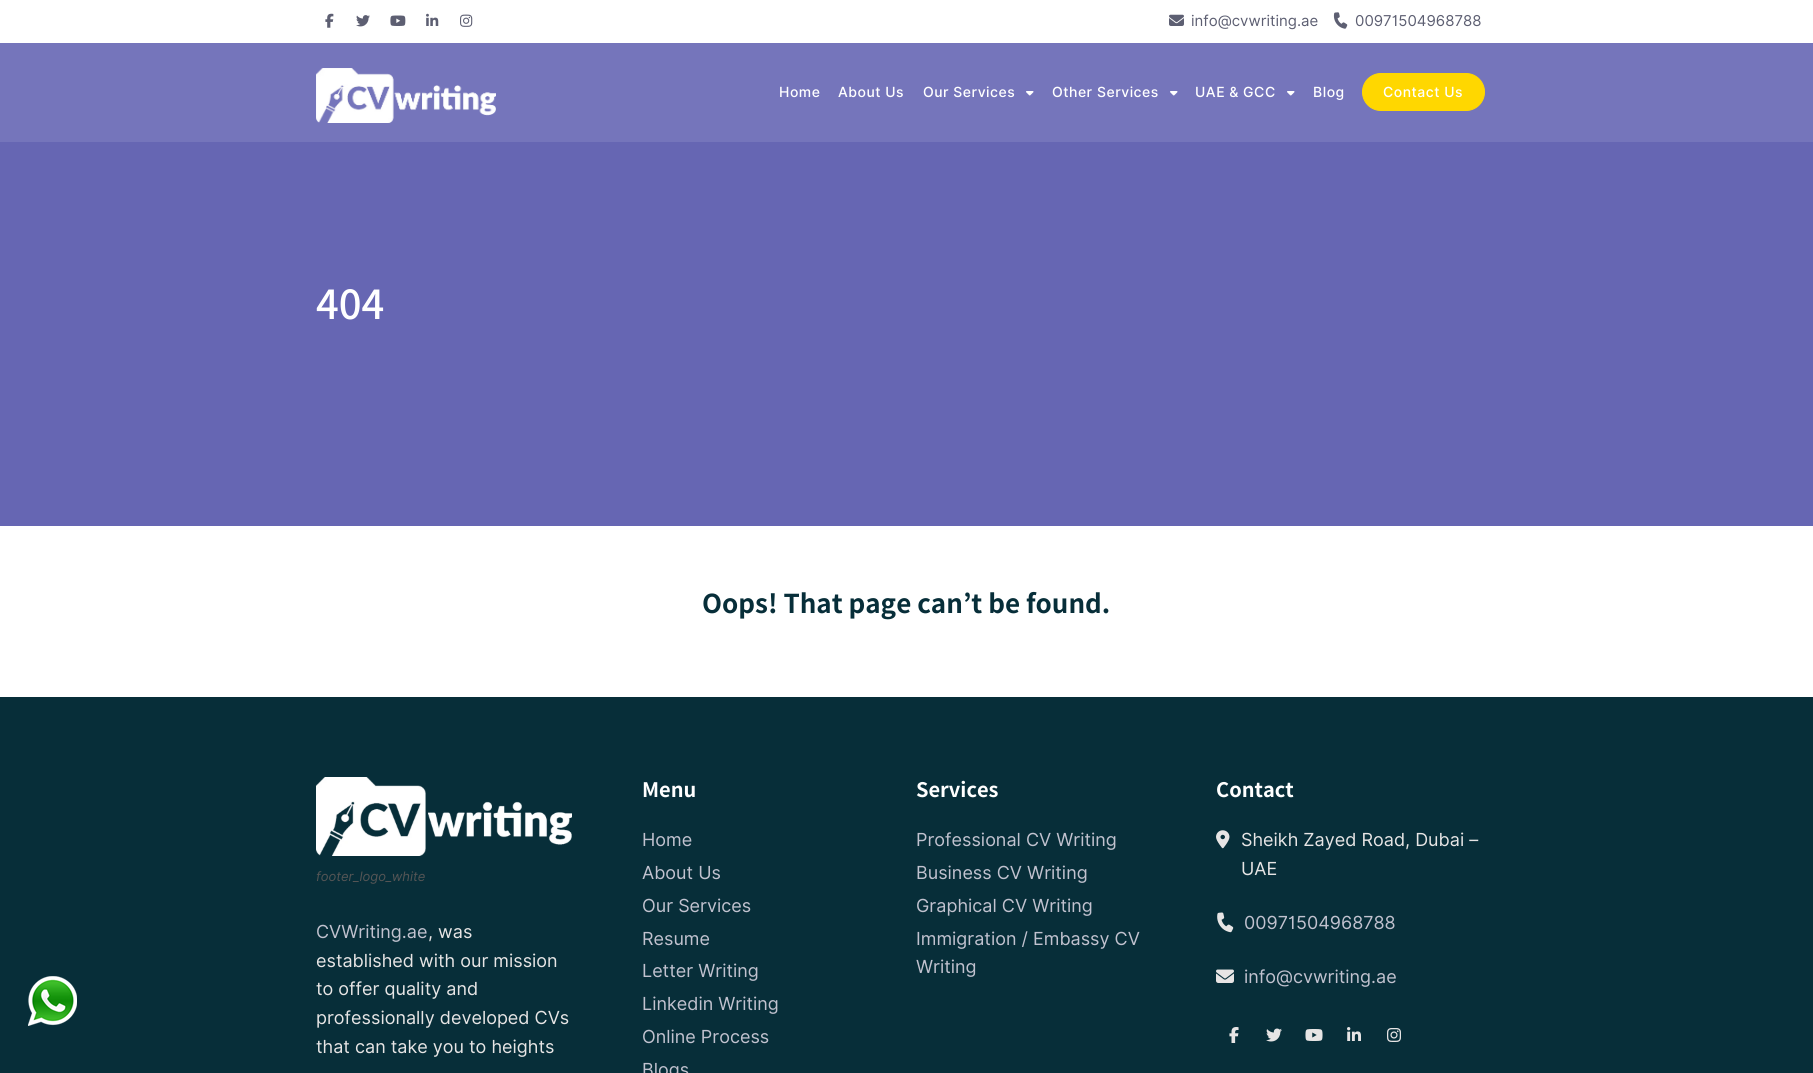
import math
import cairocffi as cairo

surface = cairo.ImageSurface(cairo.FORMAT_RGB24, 1813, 1073)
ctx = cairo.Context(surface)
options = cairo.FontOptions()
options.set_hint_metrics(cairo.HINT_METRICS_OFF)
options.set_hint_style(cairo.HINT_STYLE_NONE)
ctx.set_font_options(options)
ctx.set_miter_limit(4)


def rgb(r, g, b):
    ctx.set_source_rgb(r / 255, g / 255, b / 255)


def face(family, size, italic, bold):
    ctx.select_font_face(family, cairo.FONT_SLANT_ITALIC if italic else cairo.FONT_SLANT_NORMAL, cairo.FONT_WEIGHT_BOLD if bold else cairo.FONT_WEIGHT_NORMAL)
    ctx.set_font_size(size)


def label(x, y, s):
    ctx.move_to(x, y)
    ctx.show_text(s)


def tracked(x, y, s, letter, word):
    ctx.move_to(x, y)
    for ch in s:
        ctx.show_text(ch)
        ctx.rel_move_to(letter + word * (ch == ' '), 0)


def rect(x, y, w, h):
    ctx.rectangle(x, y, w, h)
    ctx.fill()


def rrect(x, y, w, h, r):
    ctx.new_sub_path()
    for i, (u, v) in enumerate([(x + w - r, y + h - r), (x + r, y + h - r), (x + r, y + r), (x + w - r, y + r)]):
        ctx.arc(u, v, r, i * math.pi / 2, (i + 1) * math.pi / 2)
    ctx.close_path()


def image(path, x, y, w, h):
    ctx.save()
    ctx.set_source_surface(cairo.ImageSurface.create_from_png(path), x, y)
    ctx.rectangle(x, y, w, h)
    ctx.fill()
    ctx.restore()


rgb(255, 255, 255)
ctx.paint()
image('image0.png', 325, 13, 9, 15)
image('image1.png', 356, 15, 14, 12)
image('image2.png', 390, 15, 16, 11)
image('image3.png', 426, 13, 13, 13)
image('image4.png', 460, 14, 13, 13)
image('image5.png', 1169, 14, 15, 12)
face('Inter', 15, 0, 0)
rgb(93, 95, 114)
label(1191, 26, 'info@cvwriting.ae')
image('image6.png', 1333, 12, 15, 17)
label(1355, 26, '00971504968788')
rgb(117, 117, 187)
rect(0, 43, 1813, 99)
image('image7.png', 316, 68, 180, 55)
face('Inter Medium', 14, 0, 0)
rgb(255, 255, 255)
tracked(779, 97, 'Home', 0.5, 0)
tracked(838, 97, 'About Us', 0.5, 0)
tracked(923, 97, 'Our Services', 0.5, 0)
image('image8.png', 1026, 91, 8, 5)
tracked(1052, 97, 'Other Services', 0.5, 0)
image('image8.png', 1170, 91, 8, 5)
tracked(1195, 97, 'UAE & GCC', 0.5, 0)
image('image8.png', 1287, 91, 8, 5)
tracked(1313, 97, 'Blog', 0.5, 0)
rgb(255, 215, 0)
rrect(1362.5, 73.5, 122, 37, 18.5)
ctx.fill_preserve()
ctx.set_line_width(1)
ctx.stroke()
rgb(255, 255, 255)
tracked(1383, 97, 'Contact Us', 0.5, 0)
rgb(102, 102, 179)
rect(0, 142, 1813, 384)
face('Noto Sans JP Medium', 40, 0, 0)
rgb(255, 255, 255)
label(316, 319, '404')
face('Noto Sans JP', 26, 0, 1)
rgb(7, 46, 57)
label(702, 613, 'Oops! That page can’t be found.')
rect(0, 697, 1813, 376)
image('image9.png', 28, 976, 49, 50)
image('image10.png', 316, 777, 256, 79)
face('Inter', 13, 1, 0)
rgb(85, 85, 85)
label(316, 881, 'footer_logo_white')
face('Inter', 18, 0, 0)
rgb(193, 194, 207)
label(316, 938, 'CVWriting.ae')
rgb(231, 229, 229)
label(428, 938, ', was')
label(316, 967, 'established with our mission')
label(316, 995, 'to offer quality and')
label(316, 1024, 'professionally developed CVs')
label(316, 1053, 'that can take you to heights')
face('Noto Sans JP', 20, 0, 1)
rgb(255, 255, 255)
label(642, 797, 'Menu')
face('Inter', 18, 0, 0)
rgb(193, 194, 207)
label(642, 846, 'Home')
label(642, 879, 'About Us')
label(642, 912, 'Our Services')
label(642, 945, 'Resume')
label(642, 977, 'Letter Writing')
label(642, 1010, 'Linkedin Writing')
label(642, 1043, 'Online Process')
label(642, 1076, 'Blogs')
face('Noto Sans JP', 20, 0, 1)
rgb(255, 255, 255)
label(916, 797, 'Services')
face('Inter', 18, 0, 0)
rgb(193, 194, 207)
label(916, 846, 'Professional CV Writing')
label(916, 879, 'Business CV Writing')
label(916, 912, 'Graphical CV Writing')
label(916, 945, 'Immigration / Embassy CV')
label(916, 973, 'Writing')
face('Noto Sans JP', 20, 0, 1)
rgb(255, 255, 255)
label(1216, 797, 'Contact')
image('image11.png', 1216, 830, 14, 19)
face('Inter', 18, 0, 0)
rgb(231, 229, 229)
label(1241, 846, 'Sheikh Zayed Road, Dubai –')
label(1241, 875, 'UAE')
image('image12.png', 1217, 912, 17, 21)
rgb(193, 194, 207)
label(1244, 929, '00971504968788')
image('image13.png', 1216, 969, 18, 14)
label(1244, 983, 'info@cvwriting.ae')
image('image14.png', 1229, 1027, 10, 16)
image('image15.png', 1266, 1028, 16, 14)
image('image16.png', 1305, 1029, 18, 12)
image('image17.png', 1347, 1027, 14, 14)
image('image18.png', 1387, 1028, 14, 14)
surface.write_to_png('render.png')
